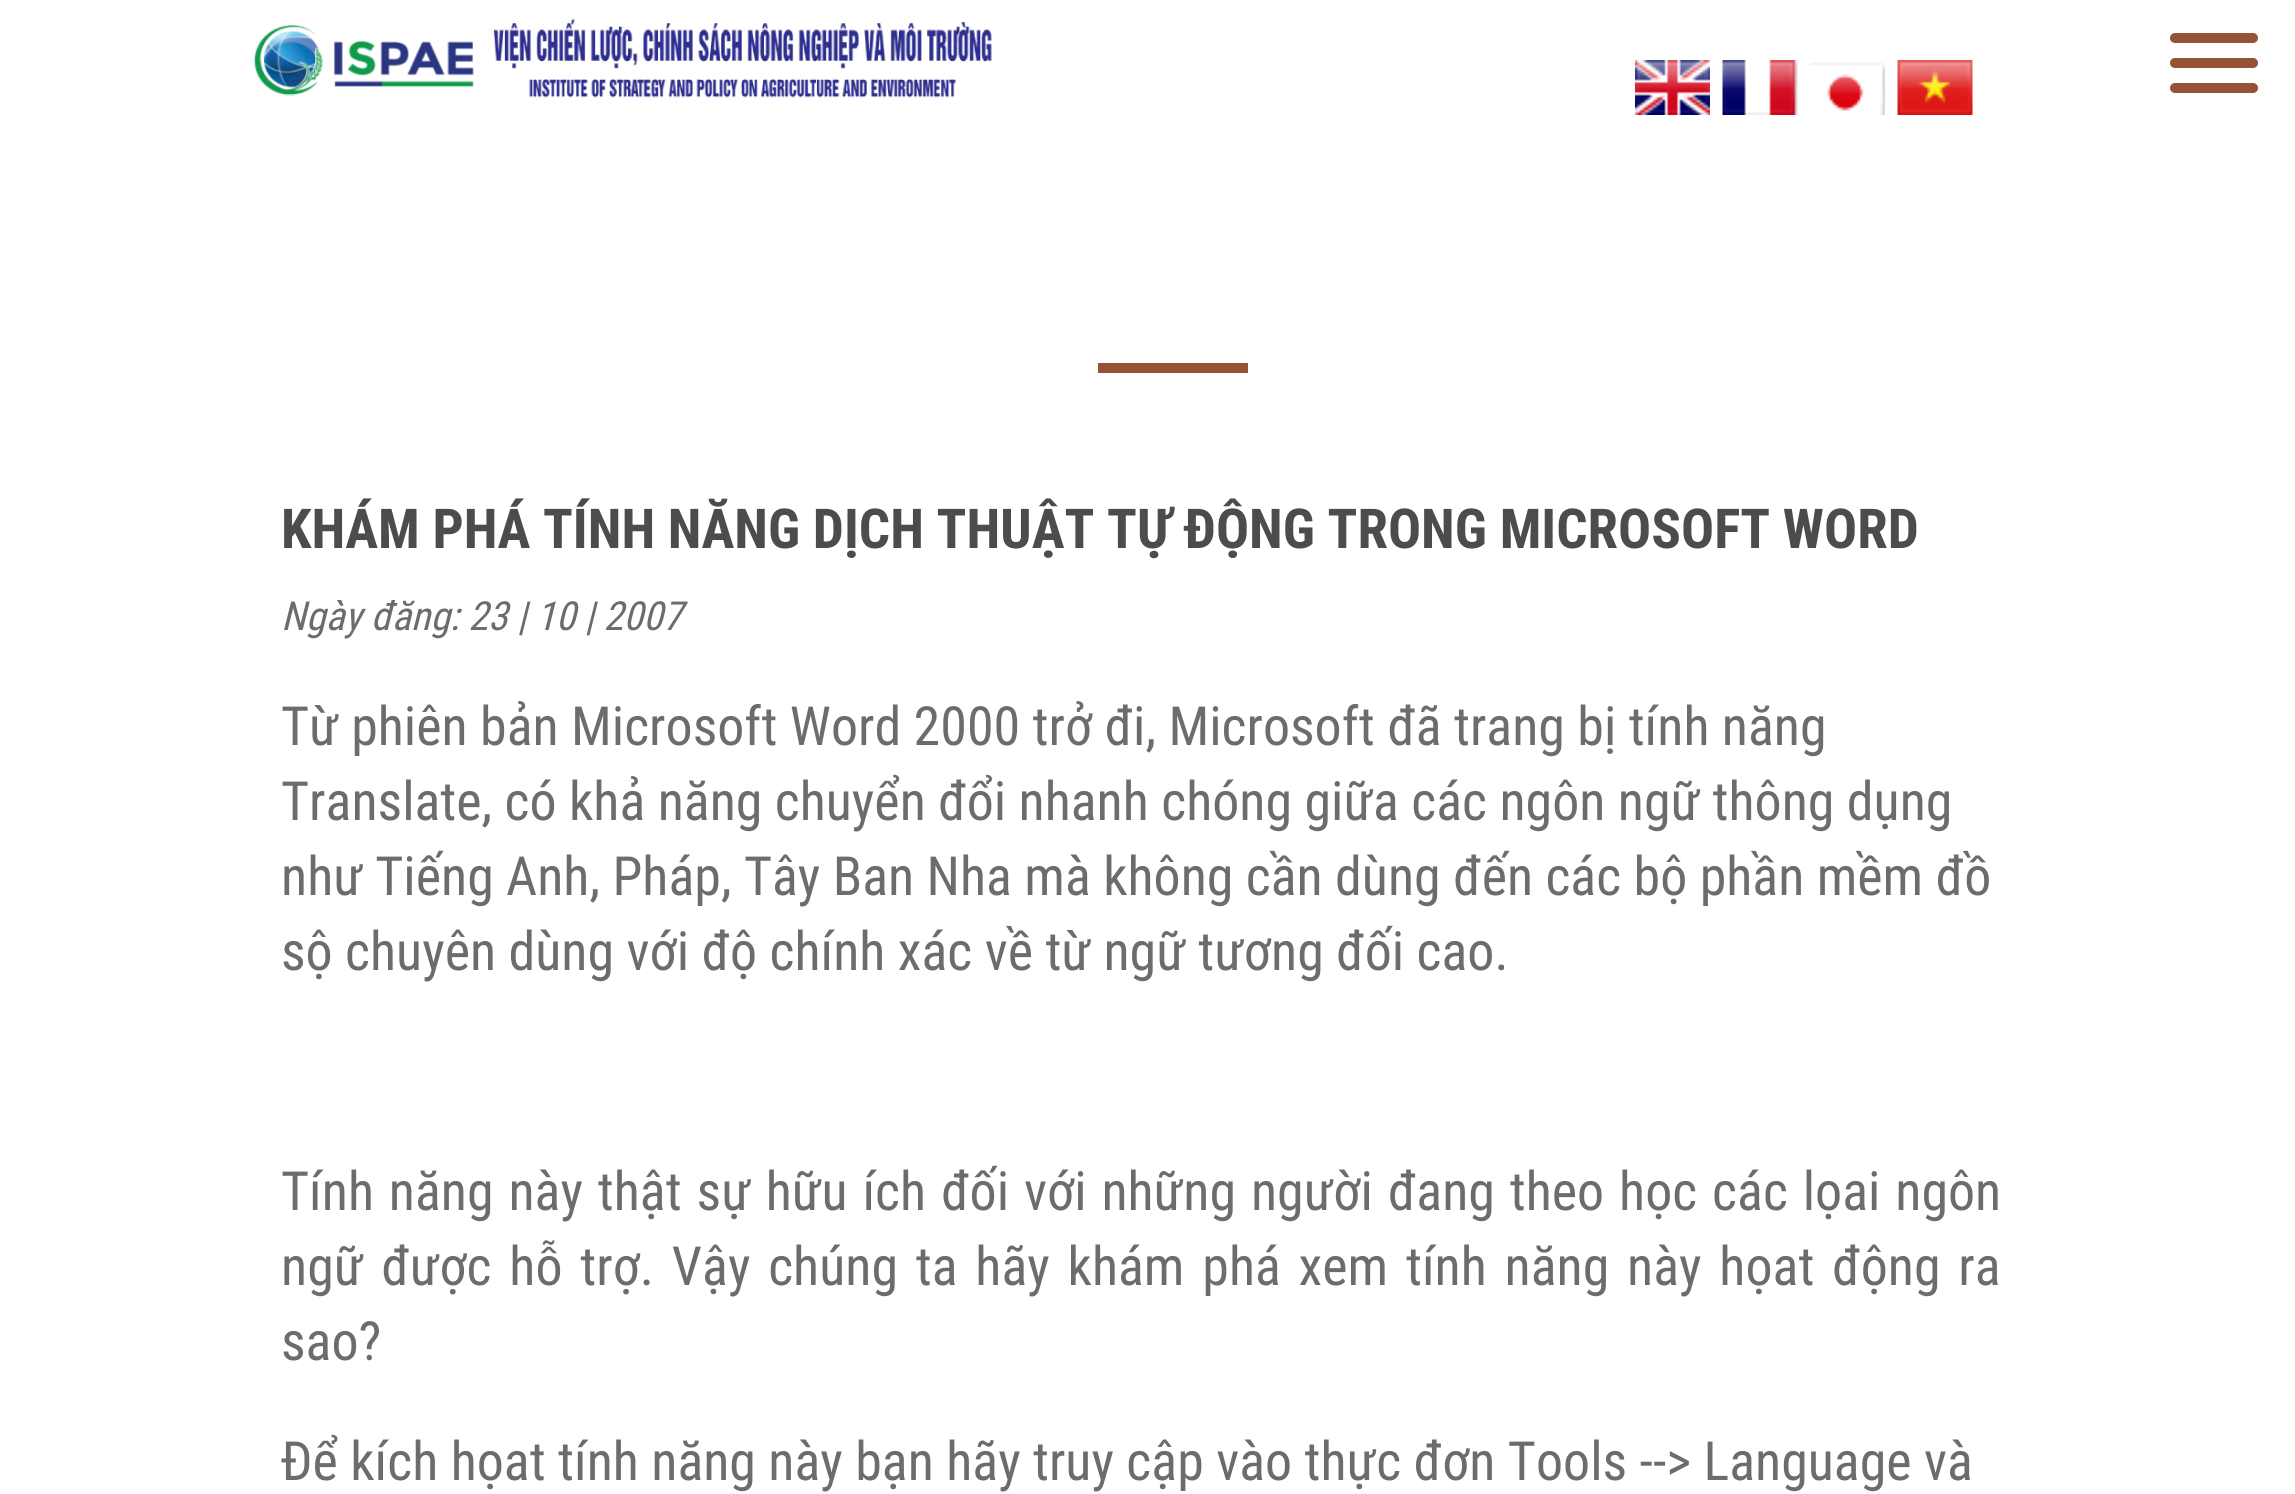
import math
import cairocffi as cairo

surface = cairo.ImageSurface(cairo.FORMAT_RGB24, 2295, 1494)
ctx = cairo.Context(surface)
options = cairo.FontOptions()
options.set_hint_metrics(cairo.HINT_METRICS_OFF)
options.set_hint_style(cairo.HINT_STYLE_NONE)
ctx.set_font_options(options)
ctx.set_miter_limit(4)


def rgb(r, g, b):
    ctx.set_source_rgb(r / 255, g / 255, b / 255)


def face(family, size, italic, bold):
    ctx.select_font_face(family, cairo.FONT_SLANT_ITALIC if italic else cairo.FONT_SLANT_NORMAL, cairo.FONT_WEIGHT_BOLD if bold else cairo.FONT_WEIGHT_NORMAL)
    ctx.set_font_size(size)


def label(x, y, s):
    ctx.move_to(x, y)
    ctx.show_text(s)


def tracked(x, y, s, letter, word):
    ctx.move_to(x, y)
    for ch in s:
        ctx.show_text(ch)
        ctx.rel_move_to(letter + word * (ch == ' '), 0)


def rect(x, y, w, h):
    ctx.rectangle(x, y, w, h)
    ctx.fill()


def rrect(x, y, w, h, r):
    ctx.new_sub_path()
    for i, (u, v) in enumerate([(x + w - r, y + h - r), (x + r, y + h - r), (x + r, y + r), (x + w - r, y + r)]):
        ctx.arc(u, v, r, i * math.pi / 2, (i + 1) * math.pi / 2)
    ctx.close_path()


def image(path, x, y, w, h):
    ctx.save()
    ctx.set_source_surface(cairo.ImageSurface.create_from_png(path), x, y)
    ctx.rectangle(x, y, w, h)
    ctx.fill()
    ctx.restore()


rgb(255, 255, 255)
ctx.paint()
image('image0.png', 254, 18, 739, 82)
image('image1.png', 1635, 60, 75, 55)
image('image2.png', 1722, 60, 76, 55)
image('image3.png', 1810, 62, 75, 53)
image('image4.png', 1897, 60, 76, 55)
rgb(150, 82, 52)
rrect(2170, 58, 88, 10, 5)
ctx.fill()
rrect(2170, 33, 88, 10, 5)
ctx.fill()
rrect(2170, 83, 88, 10, 5)
ctx.fill()
rect(1098, 363, 150, 10)
face('Roboto Condensed', 55, 0, 1)
rgb(76, 76, 76)
label(281, 548, 'KHÁM PHÁ TÍNH NĂNG DỊCH THUẬT TỰ ĐỘNG TRONG MICROSOFT WORD')
face('Roboto Condensed', 40, 1, 0)
rgb(108, 108, 108)
label(281, 630, 'Ngày đăng: 23 | 10 | 2007')
face('Roboto Condensed', 54, 0, 0)
label(281, 745, 'Từ phiên bản Microsoft Word 2000 trở đi, Microsoft đã trang bị tính năng')
label(281, 820, 'Translate, có khả năng chuyển đổi nhanh chóng giữa các ngôn ngữ thông dụng')
label(281, 895, 'như Tiếng Anh, Pháp, Tây Ban Nha mà không cần dùng đến các bộ phần mềm đồ')
label(281, 970, 'sộ chuyên dùng với độ chính xác về từ ngữ tương đối cao.')
tracked(281, 1210, 'Tính năng này thật sự hữu ích đối với những người đang theo học các lọai ngôn', 0, 2.5)
tracked(281, 1285, 'ngữ được hỗ trợ. Vậy chúng ta hãy khám phá xem tính năng này họat động ra', 0, 5.4)
label(281, 1360, 'sao?')
label(281, 1480, 'Để kích họat tính năng này bạn hãy truy cập vào thực đơn Tools --> Language và')
surface.write_to_png('render.png')
